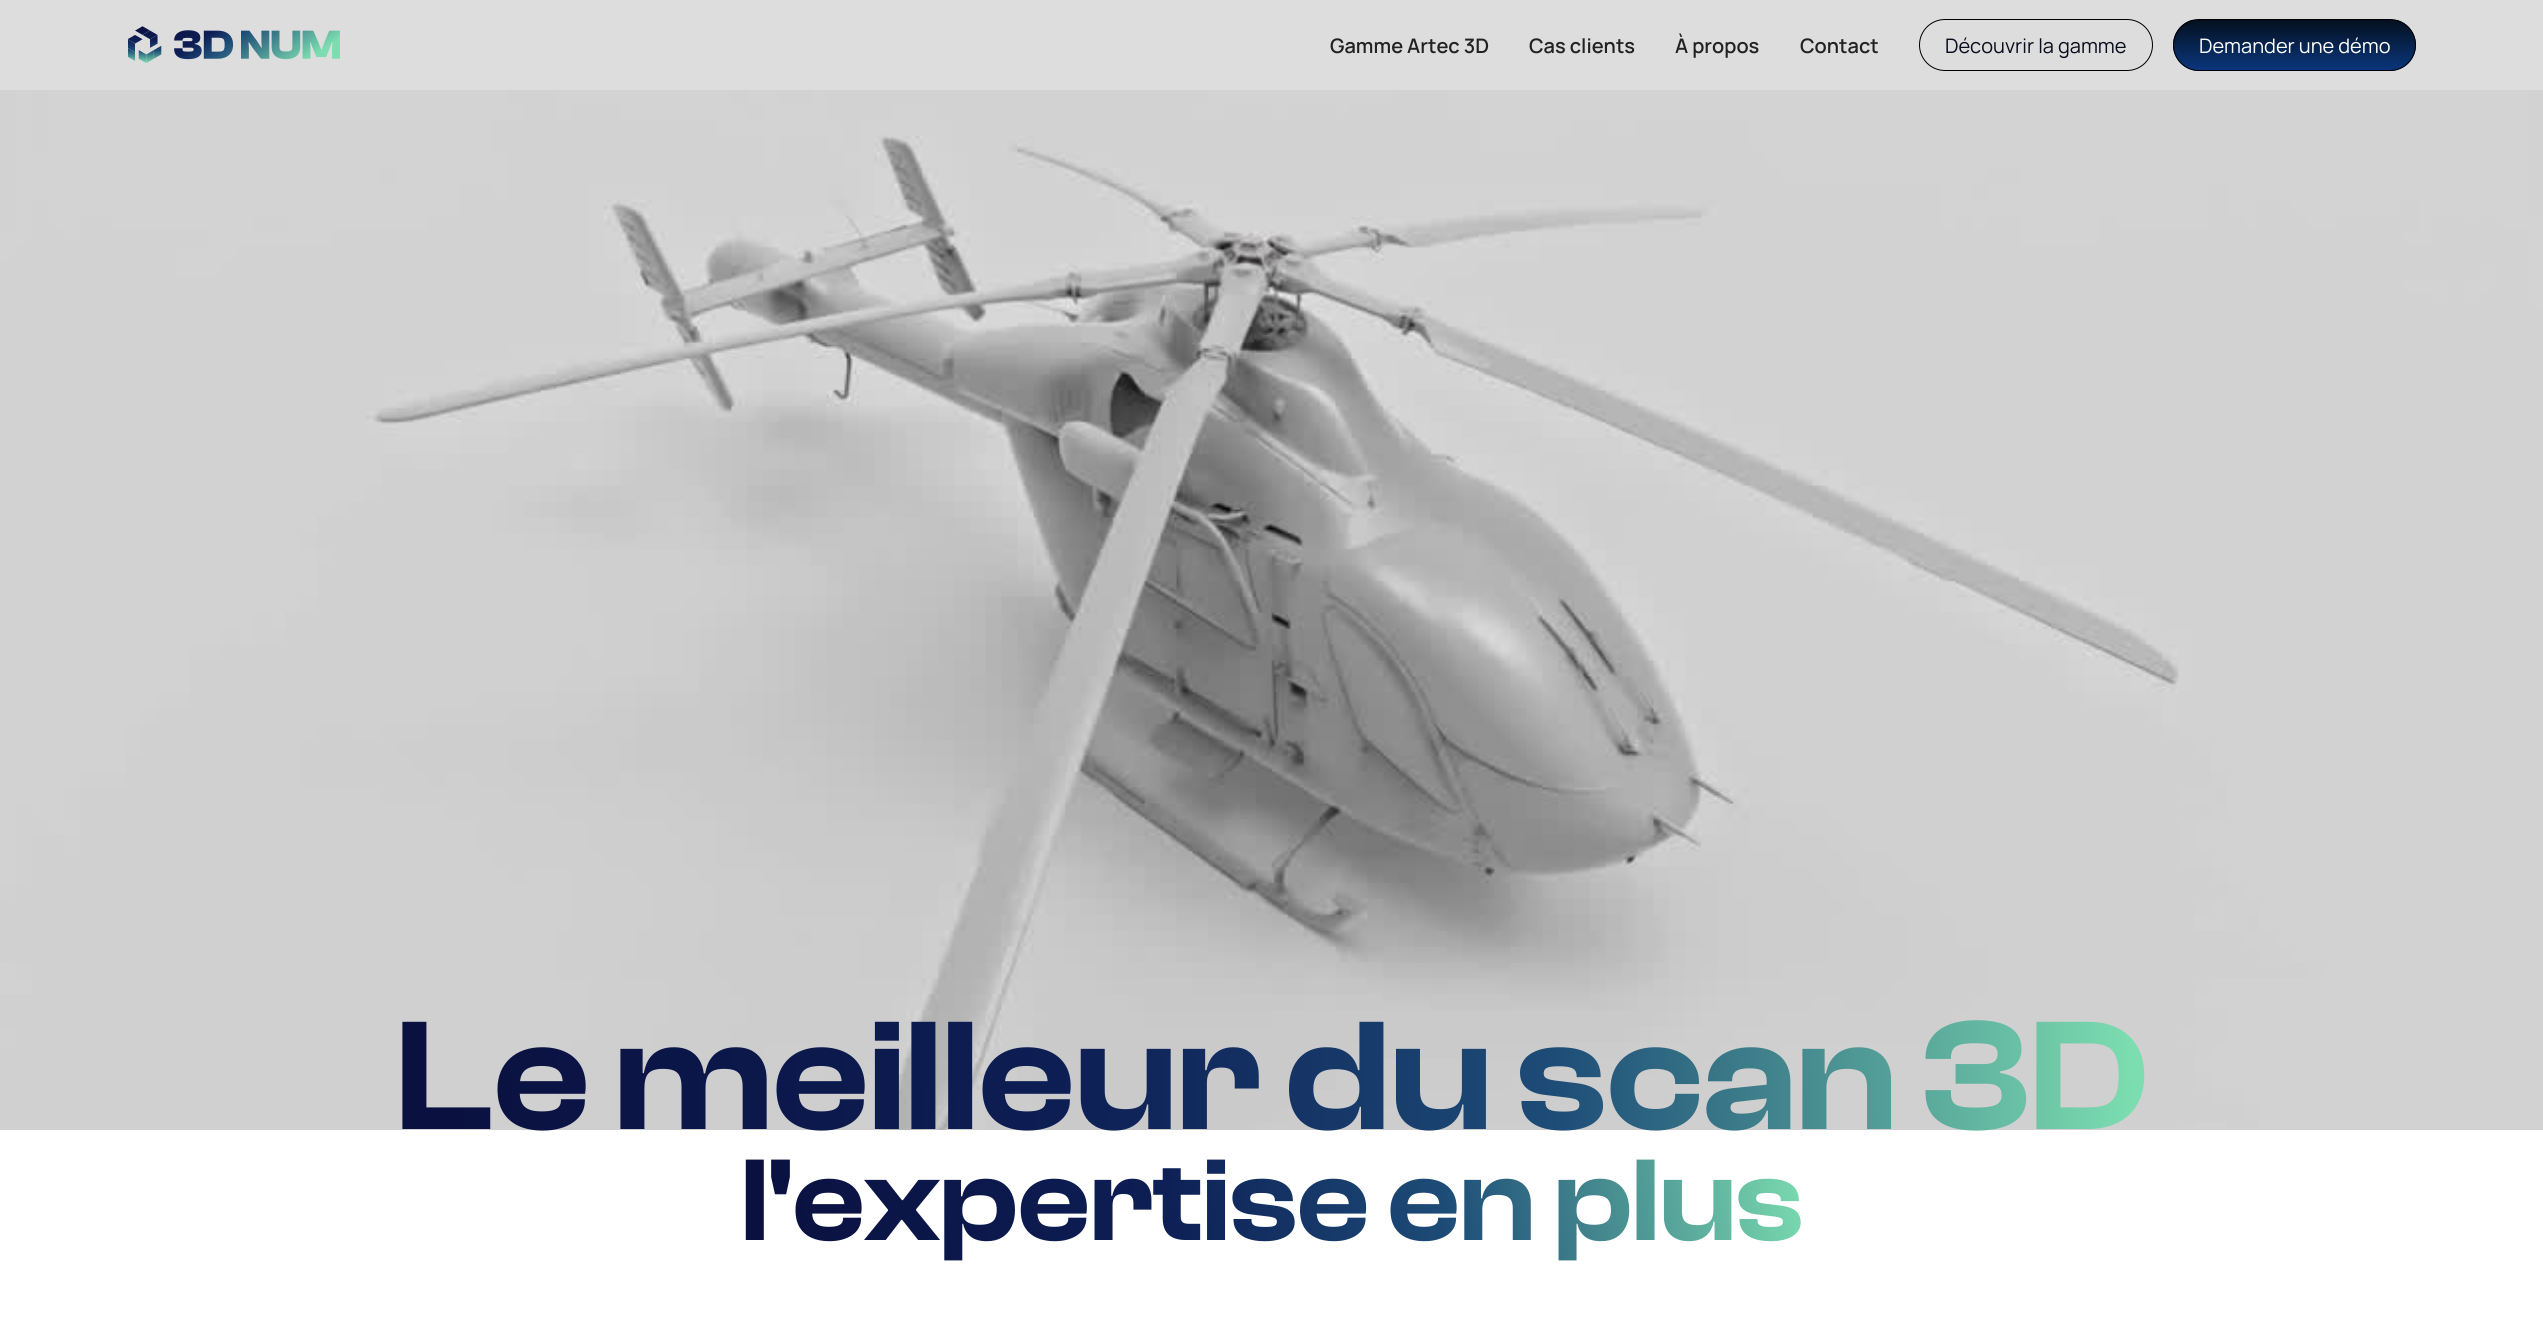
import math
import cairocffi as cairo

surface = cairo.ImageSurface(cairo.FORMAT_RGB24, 2543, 1329)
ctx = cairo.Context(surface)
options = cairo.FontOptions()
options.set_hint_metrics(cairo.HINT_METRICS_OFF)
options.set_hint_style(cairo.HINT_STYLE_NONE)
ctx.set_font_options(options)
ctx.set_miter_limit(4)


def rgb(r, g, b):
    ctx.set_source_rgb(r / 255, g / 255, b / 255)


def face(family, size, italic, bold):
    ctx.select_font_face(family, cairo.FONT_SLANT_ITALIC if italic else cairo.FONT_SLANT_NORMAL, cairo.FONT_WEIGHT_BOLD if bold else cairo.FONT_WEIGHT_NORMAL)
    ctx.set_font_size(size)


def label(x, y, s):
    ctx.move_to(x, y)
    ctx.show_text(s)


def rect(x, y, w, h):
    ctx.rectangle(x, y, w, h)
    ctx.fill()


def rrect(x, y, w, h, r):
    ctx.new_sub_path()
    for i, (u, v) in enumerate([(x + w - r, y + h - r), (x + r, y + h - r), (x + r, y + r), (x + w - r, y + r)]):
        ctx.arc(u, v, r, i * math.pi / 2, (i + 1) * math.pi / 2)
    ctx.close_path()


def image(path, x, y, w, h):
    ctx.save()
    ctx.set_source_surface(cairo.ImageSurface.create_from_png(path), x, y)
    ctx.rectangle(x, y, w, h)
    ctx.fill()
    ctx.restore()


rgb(255, 255, 255)
ctx.paint()
rgb(221, 221, 221)
rect(0, 0, 2543, 90)
image('image0.png', 128, 26, 212, 37)
face('Manrope SemiBold', 20, 0, 0)
rgb(34, 34, 34)
label(1330, 53, 'Gamme Artec 3D')
label(1529, 53, 'Cas clients')
label(1675, 53, 'À propos')
label(1800, 53, 'Contact')
rrect(1919.5, 19.5, 233, 51, 25.5)
rgb(0, 0, 0)
ctx.set_line_width(1)
ctx.stroke()
face('Manrope', 20, 0, 0)
rgb(10, 13, 28)
label(1945, 53, 'Découvrir la gamme')
ctx.save()
rrect(2173, 19, 243, 52, 26)
ctx.clip()
gradient = cairo.LinearGradient(2294, 20, 2294, 120)
gradient.add_color_stop_rgba(0, 0.016, 0.063, 0.122, 1)
gradient.add_color_stop_rgba(0.55, 0.039, 0.227, 0.525, 1)
gradient.add_color_stop_rgba(1, 0.067, 0.224, 0.506, 1)
ctx.set_source(gradient)
ctx.new_path()
ctx.move_to(2173, 20)
ctx.line_to(2416, 20)
ctx.line_to(2416, 45)
ctx.curve_to(2416, 59.5, 2404.5, 71, 2390, 71)
ctx.line_to(2199, 71)
ctx.curve_to(2184.5, 71, 2173, 59.5, 2173, 45)
ctx.close_path()
ctx.fill()
ctx.restore()
rrect(2173.5, 19.5, 242, 51, 25.5)
rgb(0, 0, 0)
ctx.stroke()
rgb(255, 255, 255)
label(2199, 53, 'Demander une démo')
image('image1.png', 0, 90, 2543, 1040)
face('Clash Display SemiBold', 160, 0, 0)
gradient = cairo.LinearGradient(395, 1090, 2149, 1059)
gradient.add_color_stop_rgba(0, 0.039, 0.063, 0.247, 1)
gradient.add_color_stop_rgba(0.38, 0.051, 0.118, 0.329, 1)
gradient.add_color_stop_rgba(0.66, 0.114, 0.298, 0.467, 1)
gradient.add_color_stop_rgba(0.99, 0.486, 0.867, 0.69, 1)
ctx.set_source(gradient)
label(396, 1129, 'Le meilleur du scan 3D')
face('Clash Display SemiBold', 120, 0, 0)
gradient = cairo.LinearGradient(741, 1277, 1803, 1128)
gradient.add_color_stop_rgba(0, 0.039, 0.063, 0.247, 1)
gradient.add_color_stop_rgba(0.39, 0.051, 0.118, 0.329, 1)
gradient.add_color_stop_rgba(0.66, 0.114, 0.298, 0.467, 1)
gradient.add_color_stop_rgba(1, 0.486, 0.867, 0.69, 1)
ctx.set_source(gradient)
label(741, 1240, 'l\'expertise en plus')
surface.write_to_png('render.png')
